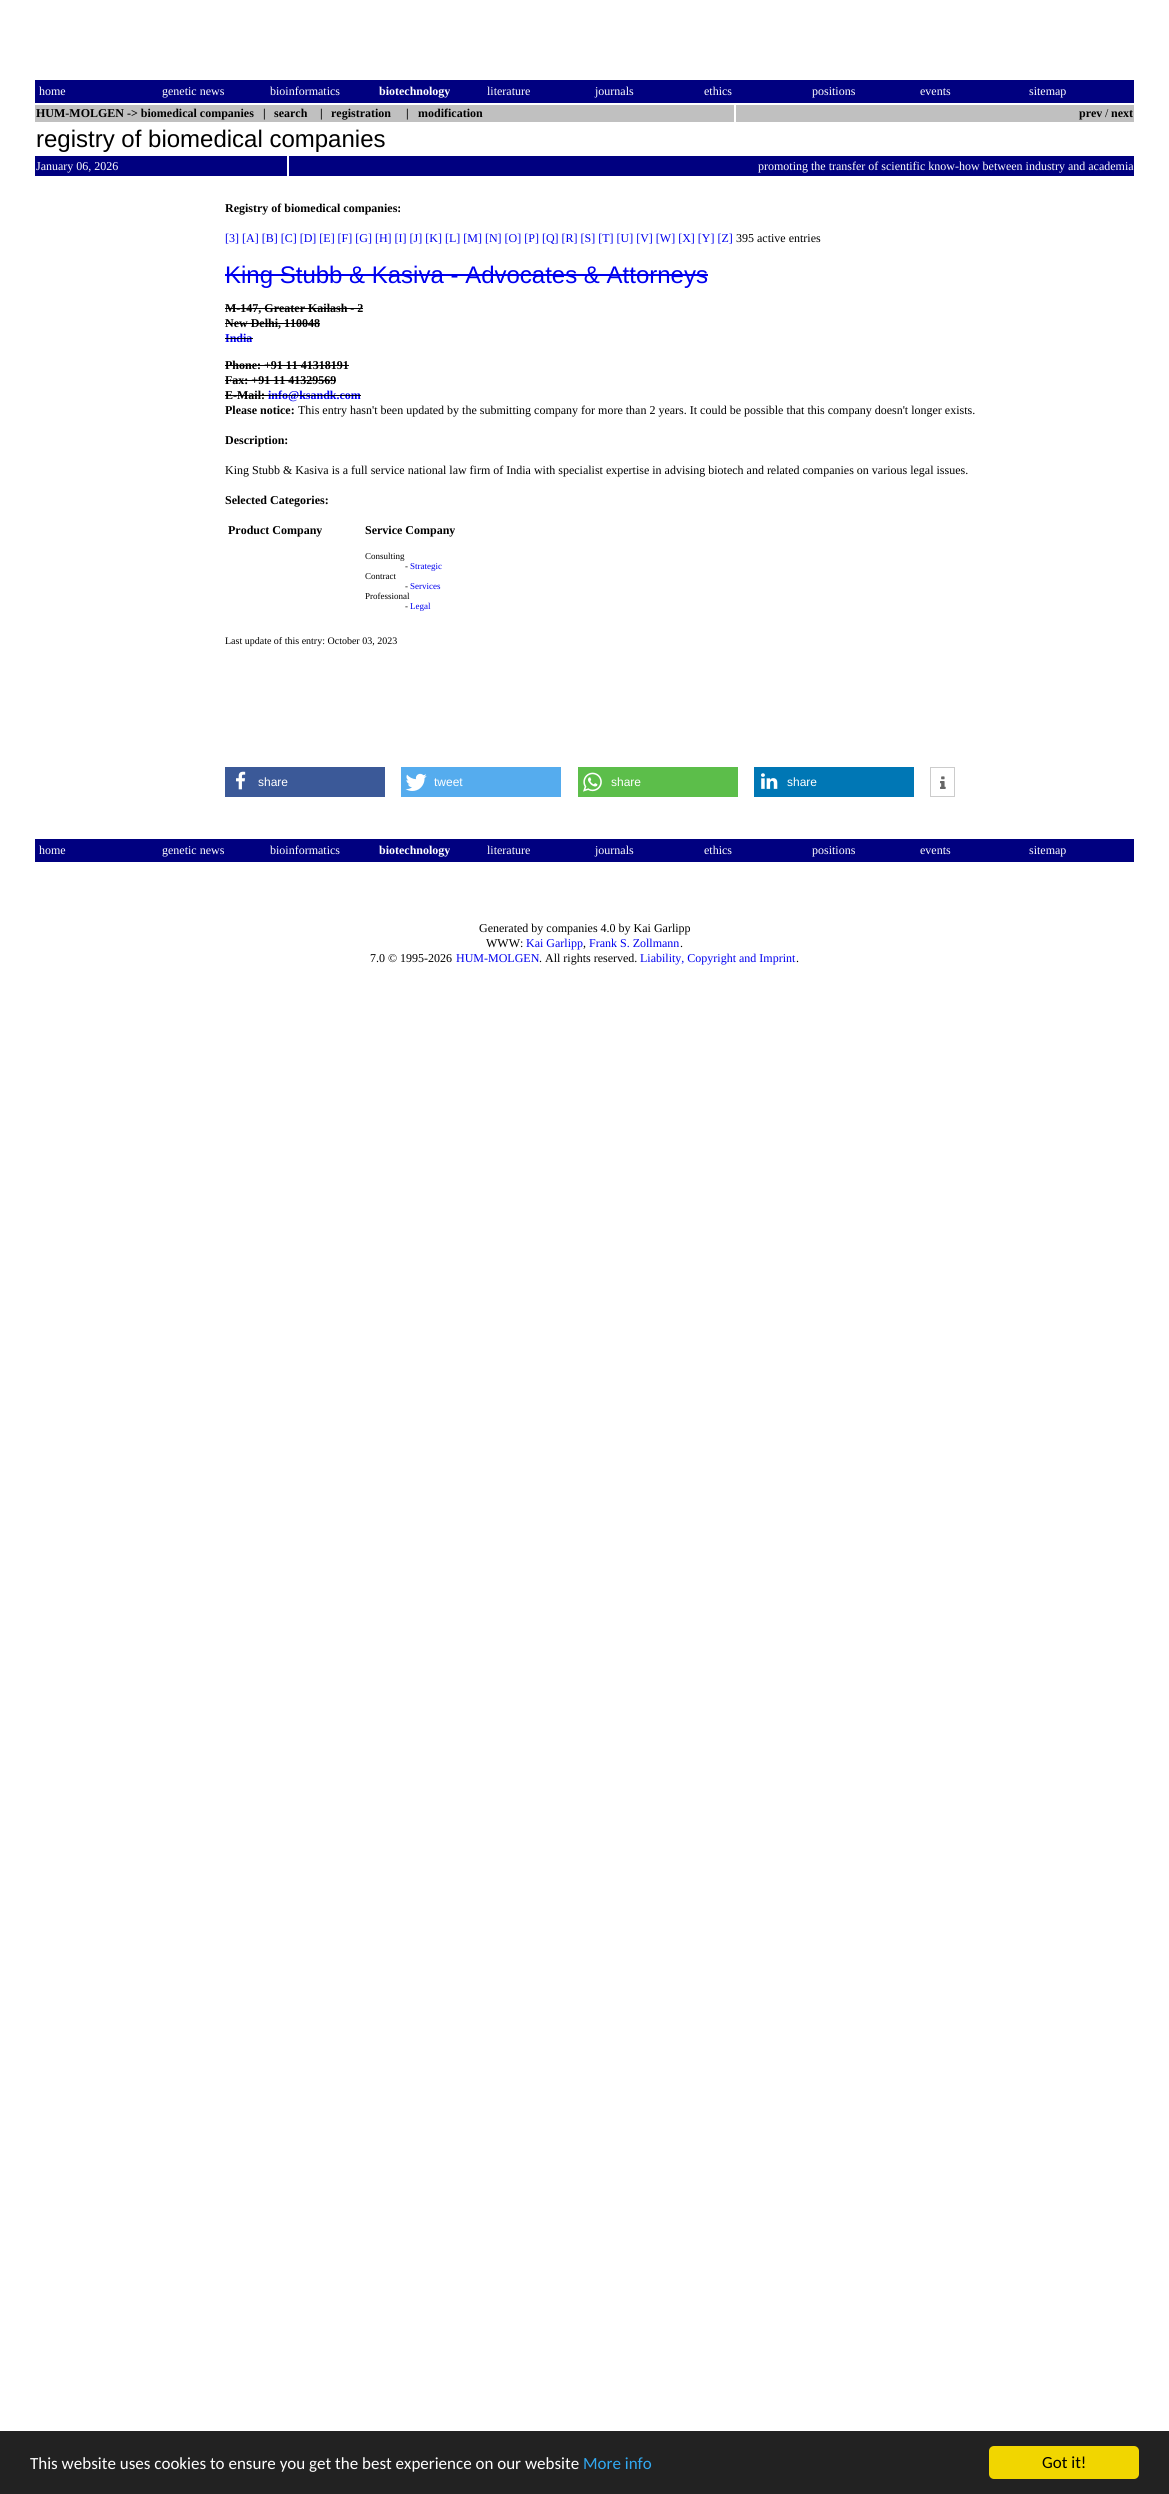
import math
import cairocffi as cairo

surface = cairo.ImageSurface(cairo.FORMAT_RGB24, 1169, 2494)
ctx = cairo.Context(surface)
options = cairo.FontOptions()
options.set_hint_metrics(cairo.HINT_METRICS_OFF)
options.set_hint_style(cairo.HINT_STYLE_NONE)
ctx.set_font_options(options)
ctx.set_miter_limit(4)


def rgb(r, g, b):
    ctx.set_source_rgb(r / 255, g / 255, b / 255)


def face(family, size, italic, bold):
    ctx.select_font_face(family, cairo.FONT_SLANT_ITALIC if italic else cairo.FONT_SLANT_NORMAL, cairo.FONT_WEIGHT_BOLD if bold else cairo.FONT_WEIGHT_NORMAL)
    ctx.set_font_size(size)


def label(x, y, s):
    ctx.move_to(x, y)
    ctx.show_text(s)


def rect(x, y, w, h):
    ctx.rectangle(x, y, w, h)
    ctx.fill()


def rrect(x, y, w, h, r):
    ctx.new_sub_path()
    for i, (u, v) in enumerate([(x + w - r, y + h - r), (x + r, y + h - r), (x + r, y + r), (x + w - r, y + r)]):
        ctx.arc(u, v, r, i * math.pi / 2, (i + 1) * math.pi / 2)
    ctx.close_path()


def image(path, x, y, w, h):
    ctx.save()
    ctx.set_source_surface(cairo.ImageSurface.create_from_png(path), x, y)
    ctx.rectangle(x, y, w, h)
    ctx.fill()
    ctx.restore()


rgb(255, 255, 255)
ctx.paint()
rgb(0, 0, 128)
rect(35, 80, 1099, 23)
face('Liberation Serif', 12, 0, 0)
rgb(255, 255, 255)
label(39, 95, 'home')
label(162, 95, 'genetic news')
label(270, 95, 'bioinformatics')
face('Liberation Serif', 12, 0, 1)
label(379, 95, 'biotechnology')
face('Liberation Serif', 12, 0, 0)
label(487, 95, 'literature')
label(595, 95, 'journals')
label(704, 95, 'ethics')
label(812, 95, 'positions')
label(920, 95, 'events')
label(1029, 95, 'sitemap')
rgb(192, 192, 192)
rect(35, 105, 699, 17)
face('Liberation Serif', 12, 0, 1)
rgb(0, 0, 0)
label(36, 117, 'HUM-MOLGEN -> biomedical companies')
label(263, 117, '|')
label(274, 117, 'search')
label(320, 117, '|')
label(331, 117, 'registration')
label(406, 117, '|')
label(418, 117, 'modification')
rgb(192, 192, 192)
rect(736, 105, 398, 17)
rgb(0, 0, 0)
label(1079, 117, 'prev')
face('Liberation Serif', 12, 0, 0)
label(1105, 117, '/')
face('Liberation Serif', 12, 0, 1)
label(1111, 117, 'next')
face('Liberation Sans', 24, 0, 0)
label(36, 147, 'registry of biomedical companies')
rgb(0, 0, 128)
rect(35, 156, 252, 20)
face('Liberation Serif', 12, 0, 0)
rgb(255, 255, 255)
label(36, 170, 'January 06, 2026')
rgb(0, 0, 128)
rect(289, 156, 845, 20)
rgb(255, 255, 255)
label(758, 170, 'promoting the transfer of scientific know-how between industry and academia')
face('Liberation Serif', 12, 0, 1)
rgb(0, 0, 0)
label(225, 212, 'Registry of biomedical companies:')
face('Liberation Serif', 12, 0, 0)
rgb(0, 0, 238)
label(225, 242, '[3] [A] [B] [C] [D] [E] [F] [G] [H] [I] [J] [K] [L] [M] [N] [O] [P] [Q] [R] [S] [T] [U] [V] [W] [X] [Y] [Z]')
rgb(0, 0, 0)
label(736, 242, '395 active entries')
face('Liberation Sans', 24, 0, 0)
rgb(0, 0, 238)
label(225, 283, 'King Stubb & Kasiva - Advocates & Attorneys')
rect(225, 274, 483, 2)
face('Liberation Serif', 12, 0, 1)
rgb(0, 0, 0)
label(225, 312, 'M-147, Greater Kailash - 2')
rect(225, 308, 138, 1)
label(225, 327, 'New Delhi, 110048')
rect(225, 323, 95, 1)
rgb(0, 0, 238)
label(225, 342, 'India')
rgb(0, 0, 0)
rect(225, 338, 28, 1)
label(225, 369, 'Phone: +91 11 41318191')
rect(225, 365, 124, 1)
label(225, 384, 'Fax: +91 11 41329569')
rect(225, 380, 111, 1)
label(225, 399, 'E-Mail:')
rect(225, 395, 43, 1)
rgb(0, 0, 238)
label(268, 399, 'info@ksandk.com')
rgb(0, 0, 0)
rect(268, 395, 93, 1)
label(225, 414, 'Please notice:')
face('Liberation Serif', 12, 0, 0)
label(298, 414, 'This entry hasn\'t been updated by the submitting company for more than 2 years. It could be possible that this company doesn\'t longer exists.')
face('Liberation Serif', 12, 0, 1)
label(225, 444, 'Description:')
face('Liberation Serif', 12, 0, 0)
label(225, 474, 'King Stubb & Kasiva is a full service national law firm of India with specialist expertise in advising biotech and related companies on various legal issues.')
face('Liberation Serif', 12, 0, 1)
label(225, 504, 'Selected Categories:')
label(228, 534, 'Product Company')
label(365, 534, 'Service Company')
face('Liberation Serif', 9, 0, 0)
label(365, 559, 'Consulting')
label(405, 569, '-')
rgb(0, 0, 238)
label(410, 569, 'Strategic')
rgb(0, 0, 0)
label(365, 579, 'Contract')
label(405, 589, '-')
rgb(0, 0, 238)
label(410, 589, 'Services')
rgb(0, 0, 0)
label(365, 599, 'Professional')
label(405, 609, '-')
rgb(0, 0, 238)
label(410, 609, 'Legal')
face('Liberation Serif', 10, 0, 0)
rgb(0, 0, 0)
label(225, 644, 'Last update of this entry: October 03, 2023')
rgb(59, 89, 152)
rect(225, 767, 160, 30)
image('image0.png', 236, 771, 10, 19)
face('Liberation Sans', 12, 0, 0)
rgb(255, 255, 255)
label(258, 786, 'share')
rgb(85, 172, 238)
rect(401, 767, 160, 30)
image('image1.png', 405, 773, 22, 18)
rgb(255, 255, 255)
label(434, 786, 'tweet')
rgb(92, 190, 74)
rect(578, 767, 160, 30)
image('image2.png', 583, 772, 19, 20)
rgb(255, 255, 255)
label(611, 786, 'share')
rgb(0, 119, 181)
rect(754, 767, 160, 30)
image('image3.png', 761, 773, 17, 16)
rgb(255, 255, 255)
label(787, 786, 'share')
ctx.rectangle(930.5, 767.5, 24, 29)
rgb(204, 204, 204)
ctx.set_line_width(1)
ctx.stroke()
image('image4.png', 940, 776, 6, 13)
rgb(0, 0, 128)
rect(35, 839, 1099, 23)
face('Liberation Serif', 12, 0, 0)
rgb(255, 255, 255)
label(39, 854, 'home')
label(162, 854, 'genetic news')
label(270, 854, 'bioinformatics')
face('Liberation Serif', 12, 0, 1)
label(379, 854, 'biotechnology')
face('Liberation Serif', 12, 0, 0)
label(487, 854, 'literature')
label(595, 854, 'journals')
label(704, 854, 'ethics')
label(812, 854, 'positions')
label(920, 854, 'events')
label(1029, 854, 'sitemap')
rgb(0, 0, 0)
label(479, 932, 'Generated by companies 4.0 by Kai Garlipp')
label(486, 947, 'WWW:')
rgb(0, 0, 238)
label(526, 947, 'Kai Garlipp')
rgb(0, 0, 0)
label(583, 947, ',')
rgb(0, 0, 238)
label(589, 947, 'Frank S. Zollmann')
rgb(0, 0, 0)
label(680, 947, '.')
label(370, 962, '7.0 © 1995-2026')
rgb(0, 0, 238)
label(456, 962, 'HUM-MOLGEN')
rgb(0, 0, 0)
label(539, 962, '. All rights reserved.')
rgb(0, 0, 238)
label(640, 962, 'Liability, Copyright and Imprint')
rgb(0, 0, 0)
label(796, 962, '.')
rgb(34, 34, 34)
rect(0, 2431, 1169, 63)
face('Carlito', 17, 0, 0)
rgb(255, 255, 255)
label(30, 2469, 'This website uses cookies to ensure you get the best experience on our website')
rgb(49, 168, 240)
label(583, 2469, 'More info')
rgb(241, 214, 0)
rrect(989, 2446, 150, 33, 5)
ctx.fill()
rgb(0, 0, 0)
label(1042, 2468, 'Got it!')
surface.write_to_png('render.png')
